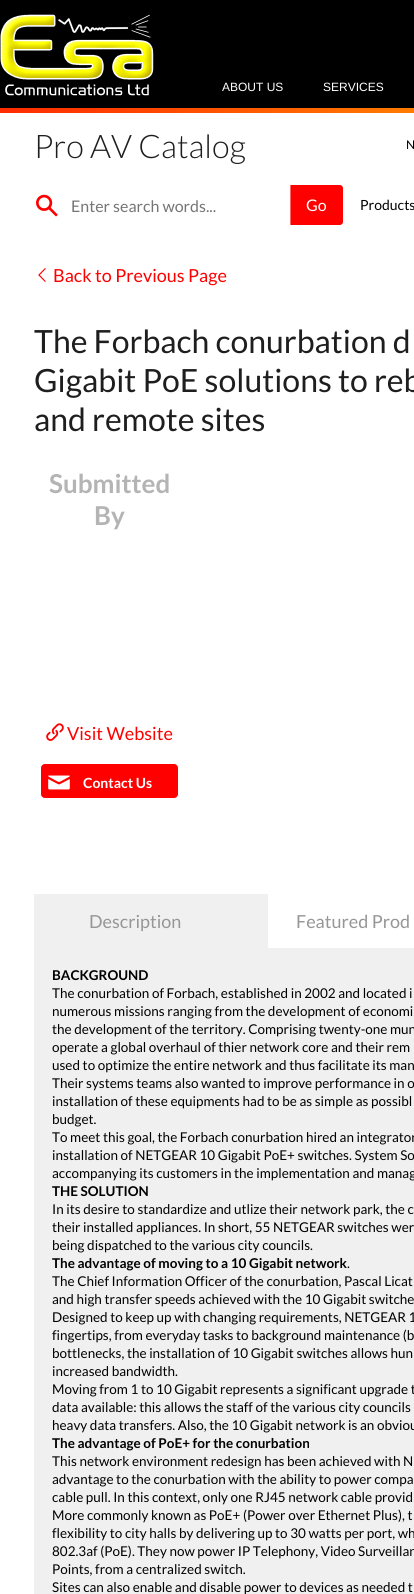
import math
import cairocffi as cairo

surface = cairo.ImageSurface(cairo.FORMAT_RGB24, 414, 1594)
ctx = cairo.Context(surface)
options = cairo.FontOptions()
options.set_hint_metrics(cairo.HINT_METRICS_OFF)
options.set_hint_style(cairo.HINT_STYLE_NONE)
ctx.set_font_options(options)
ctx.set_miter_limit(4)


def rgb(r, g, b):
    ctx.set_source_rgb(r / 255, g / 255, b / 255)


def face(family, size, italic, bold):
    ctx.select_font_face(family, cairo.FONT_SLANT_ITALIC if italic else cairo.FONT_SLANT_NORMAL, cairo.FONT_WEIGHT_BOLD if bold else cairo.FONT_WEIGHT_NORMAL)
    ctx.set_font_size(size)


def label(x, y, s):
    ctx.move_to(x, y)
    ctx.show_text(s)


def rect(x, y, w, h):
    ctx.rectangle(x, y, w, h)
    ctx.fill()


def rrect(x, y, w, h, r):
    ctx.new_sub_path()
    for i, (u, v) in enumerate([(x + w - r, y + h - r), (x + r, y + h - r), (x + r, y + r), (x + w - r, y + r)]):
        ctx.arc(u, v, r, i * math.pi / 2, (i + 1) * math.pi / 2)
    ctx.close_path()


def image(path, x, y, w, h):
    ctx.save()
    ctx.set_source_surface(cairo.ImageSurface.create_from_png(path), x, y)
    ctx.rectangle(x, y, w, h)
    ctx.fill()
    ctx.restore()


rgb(255, 255, 255)
ctx.paint()
rgb(0, 0, 0)
rect(0, 0, 414, 108)
image('image0.png', 0, 14, 154, 82)
face('Liberation Sans', 12, 0, 0)
rgb(255, 255, 255)
label(222, 91, 'ABOUT US')
label(323, 91, 'SERVICES')
image('image1.png', 0, 108, 414, 5)
face('Lato Light', 32.5, 0, 0)
rgb(30, 30, 30)
label(34, 158, 'Pro AV Catalog')
face('Lato', 12, 0, 0)
rgb(0, 0, 0)
label(406, 149, 'N')
image('image2.png', 36, 194, 22, 23)
face('Lato', 16, 0, 0)
rgb(117, 117, 117)
label(71, 212, 'Enter search words...')
rgb(255, 0, 0)
ctx.new_path()
ctx.move_to(290, 185)
ctx.line_to(340, 185)
ctx.curve_to(341.5, 185, 343, 186.5, 343, 188)
ctx.line_to(343, 222)
ctx.curve_to(343, 223.5, 341.5, 225, 340, 225)
ctx.line_to(290, 225)
ctx.close_path()
ctx.fill()
rgb(255, 102, 102)
rect(290, 185, 1, 40)
rgb(255, 255, 255)
label(306, 211, 'Go')
face('Lato', 14, 0, 0)
rgb(0, 0, 0)
label(360, 210, 'Products')
image('image3.png', 38, 268, 8, 14)
face('Lato', 18, 0, 0)
rgb(255, 0, 0)
label(53, 282, 'Back to Previous Page')
face('Lato', 32, 0, 0)
rgb(30, 30, 30)
label(34, 353, 'The Forbach conurbation d')
label(34, 392, 'Gigabit PoE solutions to reb')
label(34, 431, 'and remote sites')
face('Lato', 26, 0, 1)
rgb(180, 180, 180)
label(49, 493, 'Submitted')
label(94, 525, 'By')
image('image4.png', 46, 723, 18, 18)
face('Lato', 18, 0, 0)
rgb(255, 0, 0)
label(67, 740, 'Visit Website')
rrect(40.5, 763.5, 138, 35, 4.5)
ctx.fill_preserve()
rgb(255, 255, 255)
ctx.set_line_width(1)
ctx.stroke()
image('image5.png', 48, 775, 22, 15)
face('Lato', 14, 0, 1)
label(83, 788, 'Contact Us')
rgb(240, 240, 240)
rect(34, 894, 234, 54)
face('Lato', 18, 0, 0)
rgb(150, 150, 150)
label(89, 928, 'Description')
label(296, 928, 'Featured Prod')
rgb(240, 240, 240)
rect(34, 948, 380, 646)
face('Lato', 13.5, 0, 1)
rgb(0, 0, 0)
label(52, 980, 'BACKGROUND')
face('Lato', 13.5, 0, 0)
label(52, 998, 'The conurbation of Forbach, established in 2002 and located i')
label(52, 1016, 'numerous missions ranging from the development of economi')
label(52, 1034, 'the development of the territory. Comprising twenty-one mun')
label(52, 1052, 'operate a global overhaul of thier network core and their rem')
label(52, 1070, 'used to optimize the entire network and thus facilitate its man')
label(52, 1088, 'Their systems teams also wanted to improve performance in o')
label(52, 1106, 'installation of these equipments had to be as simple as possibl')
label(52, 1124, 'budget.')
label(52, 1142, 'To meet this goal, the Forbach conurbation hired an integrator')
label(52, 1160, 'installation of NETGEAR 10 Gigabit PoE+ switches. System So')
label(52, 1178, 'accompanying its customers in the implementation and manag')
face('Lato', 13.5, 0, 1)
label(52, 1196, 'THE SOLUTION')
face('Lato', 13.5, 0, 0)
label(52, 1214, 'In its desire to standardize and utlize their network park, the c')
label(52, 1232, 'their installed appliances. In short, 55 NETGEAR switches wer')
label(52, 1250, 'being dispatched to the various city councils.')
face('Lato', 13.5, 0, 1)
label(52, 1268, 'The advantage of moving to a 10 Gigabit network')
face('Lato', 13.5, 0, 0)
label(347, 1268, '.')
label(52, 1286, 'The Chief Information Officer of the conurbation, Pascal Licat')
label(52, 1304, 'and high transfer speeds achieved with the 10 Gigabit switche')
label(52, 1322, 'Designed to keep up with changing requirements, NETGEAR 1')
label(52, 1340, 'fingertips, from everyday tasks to background maintenance (b')
label(52, 1358, 'bottlenecks, the installation of 10 Gigabit switches allows hun')
label(52, 1376, 'increased bandwidth.')
label(52, 1394, 'Moving from 1 to 10 Gigabit represents a significant upgrade t')
label(52, 1412, 'data available: this allows the staff of the various city councils')
label(52, 1430, 'heavy data transfers. Also, the 10 Gigabit network is an obviou')
face('Lato', 13.5, 0, 1)
label(52, 1448, 'The advantage of PoE+ for the conurbation')
face('Lato', 13.5, 0, 0)
label(52, 1466, 'This network environment redesign has been achieved with N')
label(52, 1484, 'advantage to the conurbation with the ability to power compa')
label(52, 1502, 'cable pull. In this context, only one RJ45 network cable provid')
label(52, 1520, 'More commonly known as PoE+ (Power over Ethernet Plus), t')
label(52, 1538, 'flexibility to city halls by delivering up to 30 watts per port, wh')
label(52, 1556, '802.3af (PoE). They now power IP Telephony, Video Surveillan')
label(52, 1574, 'Points, from a centralized switch.')
label(52, 1592, 'Sites can also enable and disable power to devices as needed t')
surface.write_to_png('render.png')
